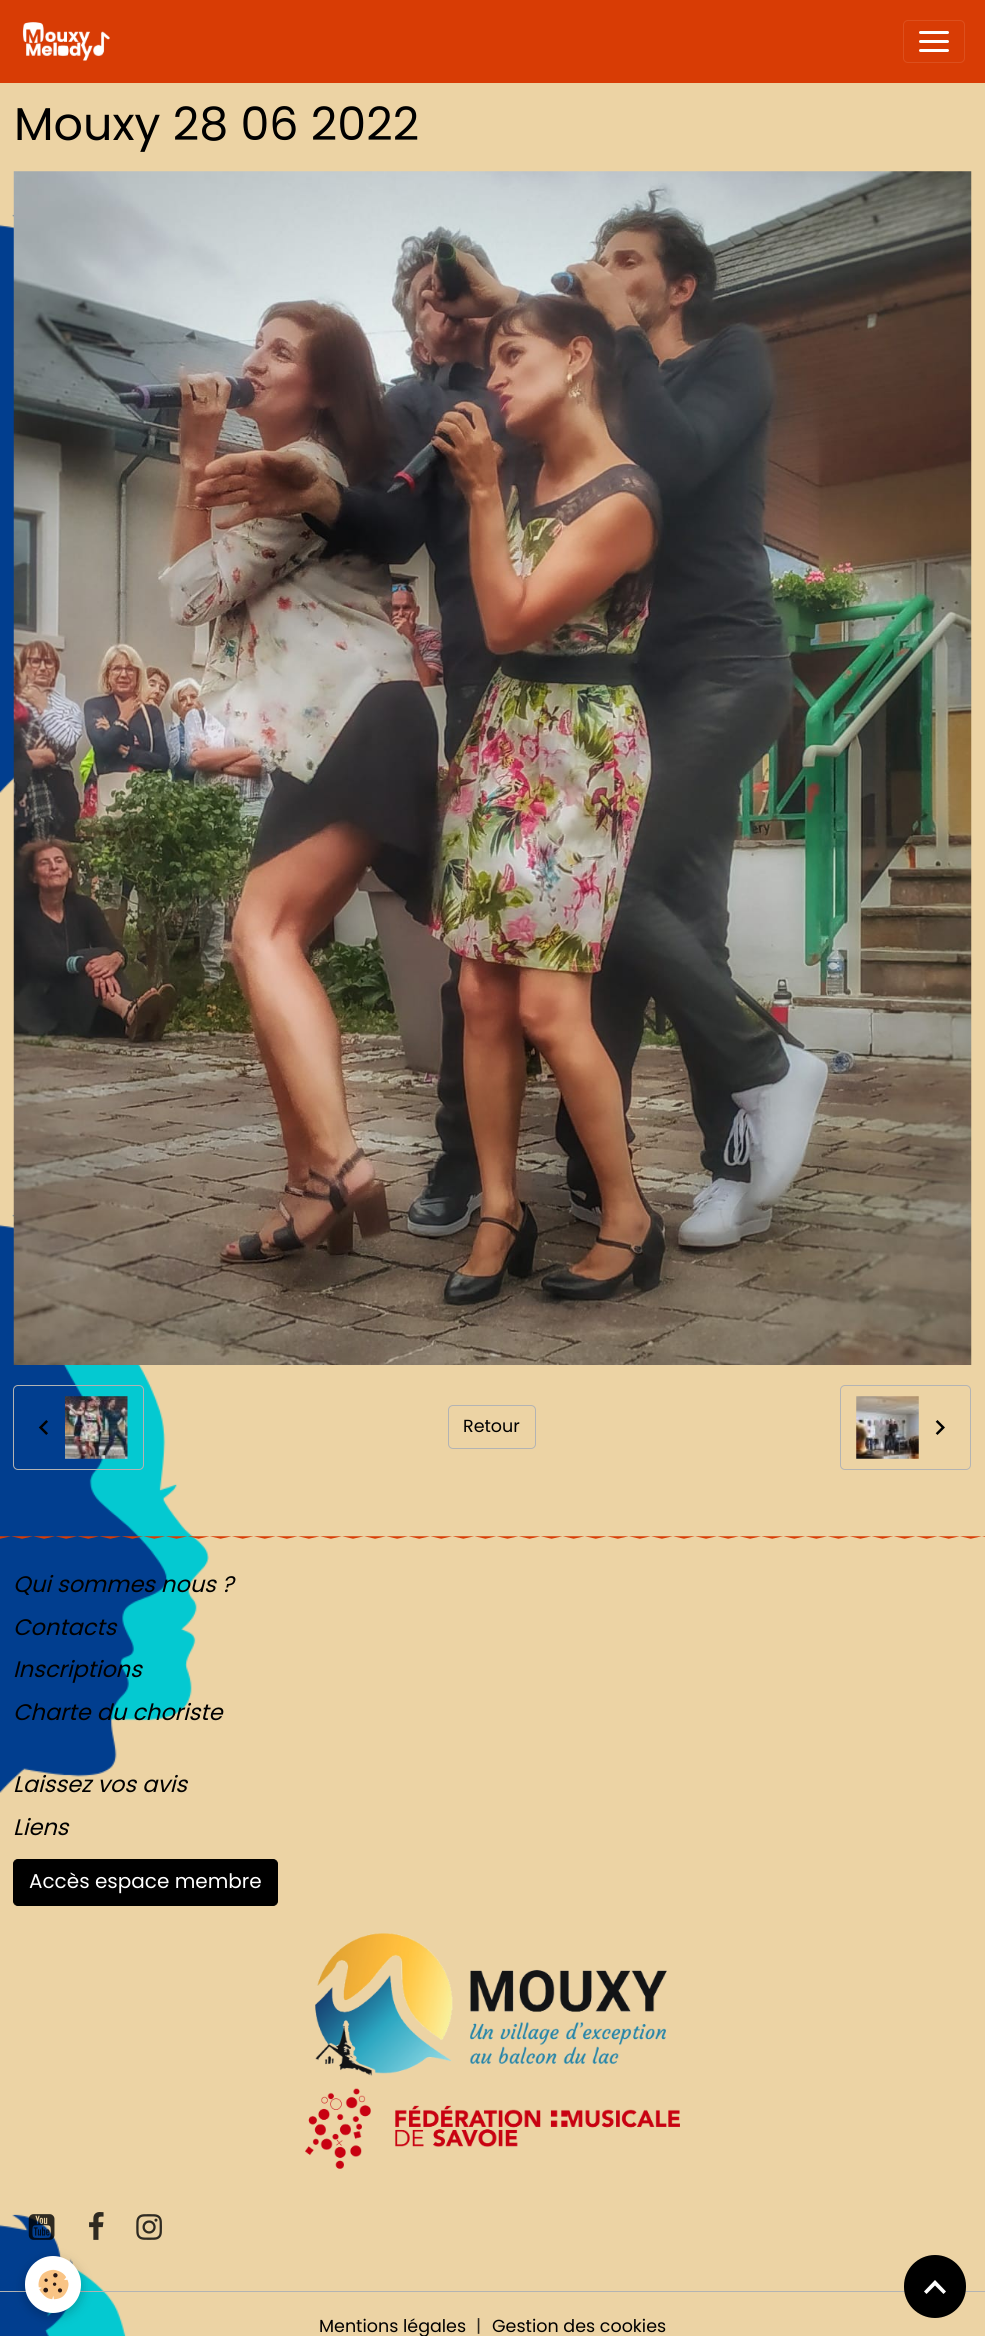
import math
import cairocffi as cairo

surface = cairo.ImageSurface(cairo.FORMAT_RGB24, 985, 2336)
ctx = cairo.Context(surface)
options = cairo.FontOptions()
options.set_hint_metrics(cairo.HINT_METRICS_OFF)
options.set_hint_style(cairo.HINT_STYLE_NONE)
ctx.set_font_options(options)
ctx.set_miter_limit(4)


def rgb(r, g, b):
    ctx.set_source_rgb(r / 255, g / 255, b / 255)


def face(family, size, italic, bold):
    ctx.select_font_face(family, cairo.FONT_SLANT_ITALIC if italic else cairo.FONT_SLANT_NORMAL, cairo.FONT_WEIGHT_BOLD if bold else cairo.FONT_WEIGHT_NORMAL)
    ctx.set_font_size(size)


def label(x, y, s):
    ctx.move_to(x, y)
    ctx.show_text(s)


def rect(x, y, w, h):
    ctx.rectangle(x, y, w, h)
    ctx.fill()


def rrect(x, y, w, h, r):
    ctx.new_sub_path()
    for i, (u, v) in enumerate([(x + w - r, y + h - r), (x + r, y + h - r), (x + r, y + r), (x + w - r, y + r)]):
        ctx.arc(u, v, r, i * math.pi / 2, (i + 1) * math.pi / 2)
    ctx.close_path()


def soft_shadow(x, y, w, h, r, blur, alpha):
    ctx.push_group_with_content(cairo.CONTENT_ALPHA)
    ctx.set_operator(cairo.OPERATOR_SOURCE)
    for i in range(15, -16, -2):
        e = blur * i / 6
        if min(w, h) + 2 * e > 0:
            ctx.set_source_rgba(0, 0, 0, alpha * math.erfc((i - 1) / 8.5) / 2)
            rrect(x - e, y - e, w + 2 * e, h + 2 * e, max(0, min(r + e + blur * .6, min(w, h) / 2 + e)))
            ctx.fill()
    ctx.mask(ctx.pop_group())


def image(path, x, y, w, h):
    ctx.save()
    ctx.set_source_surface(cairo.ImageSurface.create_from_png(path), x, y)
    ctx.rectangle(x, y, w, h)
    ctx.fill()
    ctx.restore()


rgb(255, 255, 255)
ctx.paint()
image('image0.png', 0, 83, 985, 2253)
rgb(216, 60, 5)
rect(0, 0, 985, 83)
image('image1.png', 22, 22, 88, 39)
rrect(903.5, 20.5, 61, 42, 4.5)
rgb(220, 80, 30)
ctx.set_line_width(1)
ctx.stroke()
rgb(255, 255, 255)
rrect(919, 31, 30, 3, 1.5)
ctx.fill()
rrect(919, 40, 30, 3, 1.5)
ctx.fill()
rrect(919, 49, 30, 3, 1.5)
ctx.fill()
face('Poppins', 46, 0, 0)
rgb(0, 0, 0)
label(14, 140, 'Mouxy 28 06 2022')
image('image2.png', 13, 171, 959, 1194)
rrect(13.5, 1385.5, 130, 84, 4.5)
rgb(179, 179, 179)
ctx.stroke()
image('image3.png', 38, 1420, 10, 15)
image('image4.png', 65, 1396, 63, 63)
rrect(448.5, 1405.5, 87, 43, 4.5)
ctx.stroke()
face('Poppins', 17.5, 0, 0)
rgb(0, 0, 0)
label(463, 1432, 'Retour')
rrect(840.5, 1385.5, 130, 84, 4.5)
rgb(179, 179, 179)
ctx.stroke()
image('image5.png', 856, 1396, 63, 63)
image('image6.png', 935, 1420, 10, 15)
image('image7.png', 0, 1536, 985, 3)
face('Poppins', 22.5, 1, 0)
rgb(0, 0, 0)
label(13, 1592, 'Qui sommes nous ?')
label(13, 1635, 'Contacts')
label(13, 1677, 'Inscriptions')
label(13, 1720, 'Charte du choriste')
label(13, 1792, 'Laissez vos avis')
label(13, 1835, 'Liens')
rrect(13.5, 1859.5, 264, 46, 4.5)
ctx.fill_preserve()
ctx.stroke()
face('Poppins', 20, 0, 0)
rgb(255, 255, 255)
label(29, 1888, 'Accès espace membre')
image('image8.png', 315, 1933, 352, 143)
image('image9.png', 305, 2088, 375, 81)
image('image10.png', 28, 2214, 27, 26)
image('image11.png', 89, 2212, 15, 28)
image('image12.png', 136, 2214, 26, 26)
rgb(179, 179, 179)
rect(0, 2291, 985, 1)
face('Poppins', 17.5, 0, 0)
rgb(0, 0, 0)
label(319, 2332, 'Mentions légales')
rgb(47, 42, 33)
label(476, 2332, '|')
rgb(0, 0, 0)
label(492, 2332, 'Gestion des cookies')
rgb(0, 0, 0)
soft_shadow(25, 2260, 56, 56, 28, 6, 0.24)
rgb(255, 255, 255)
rrect(25, 2256, 56, 57, 28)
ctx.fill()
image('image13.png', 38, 2269, 31, 31)
rgb(0, 0, 0)
rrect(904, 2255, 62, 63, 31)
ctx.fill()
rgb(255, 255, 255)
ctx.new_path()
ctx.move_to(935, 2280)
ctx.line_to(946, 2291.5)
ctx.line_to(943.5, 2294)
ctx.line_to(935, 2285.5)
ctx.line_to(926.5, 2294)
ctx.line_to(924, 2291.5)
ctx.close_path()
ctx.fill()
surface.write_to_png('render.png')
